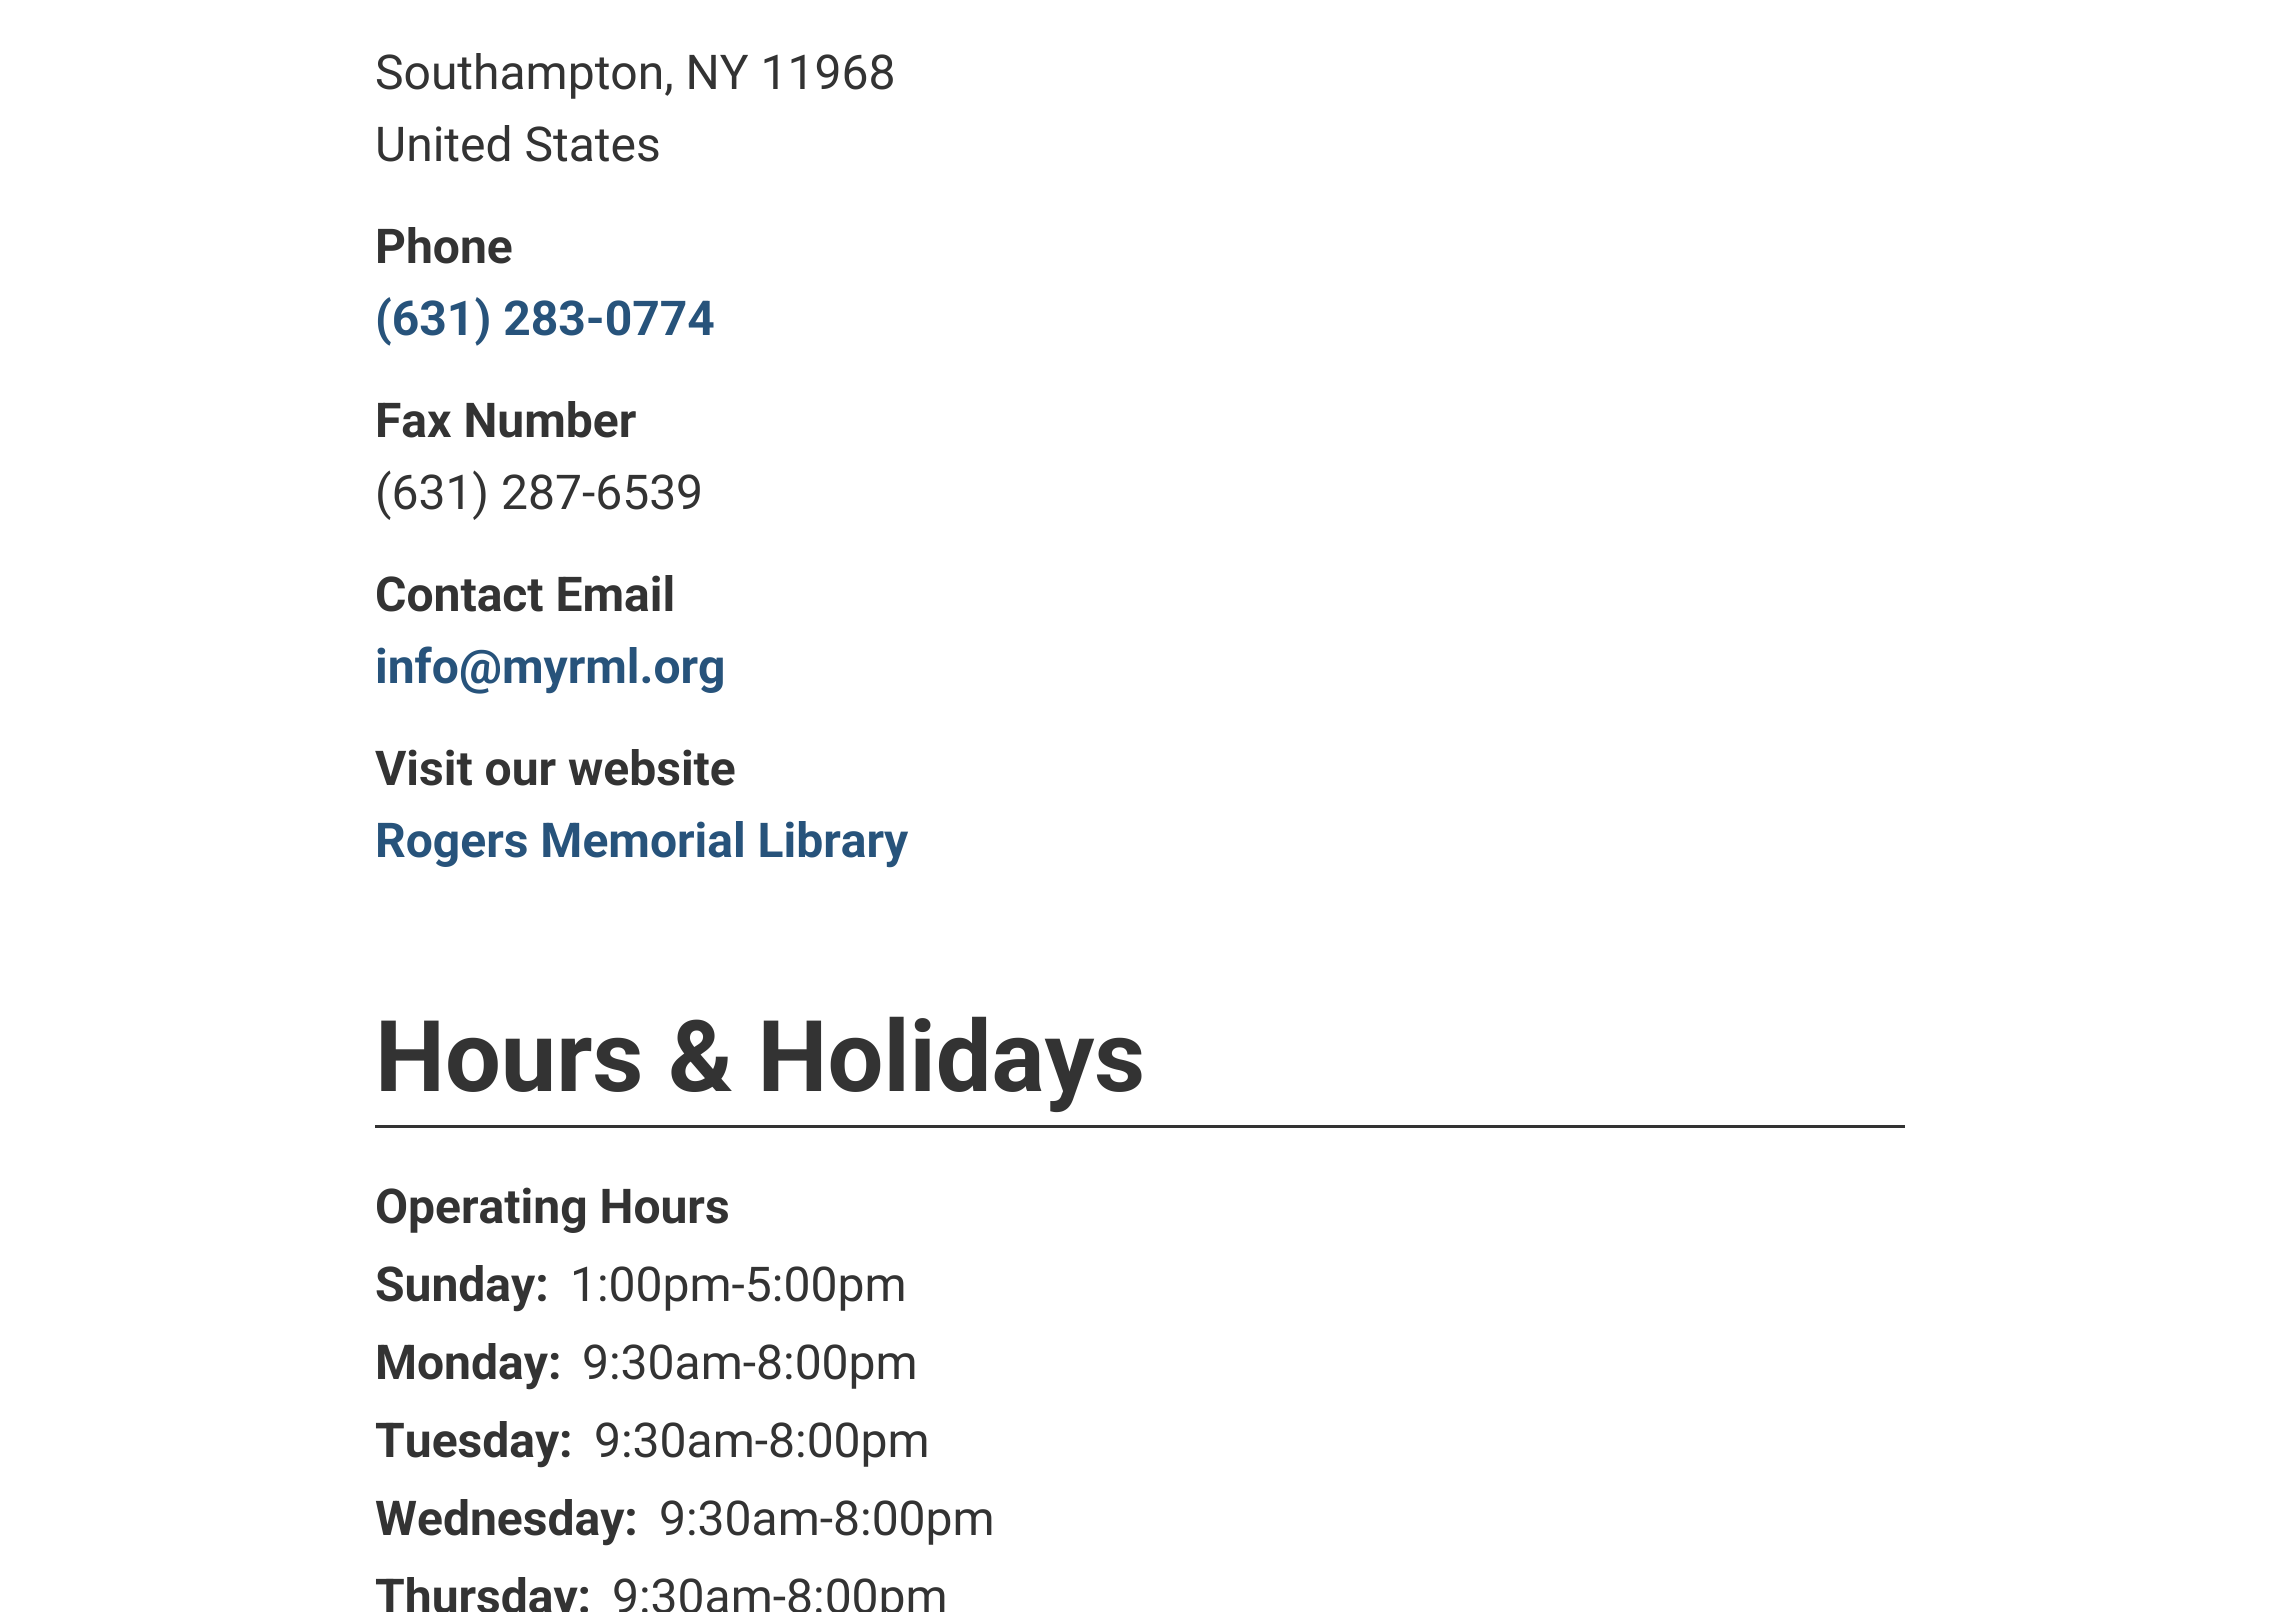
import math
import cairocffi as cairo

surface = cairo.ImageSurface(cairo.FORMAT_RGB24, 2278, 1612)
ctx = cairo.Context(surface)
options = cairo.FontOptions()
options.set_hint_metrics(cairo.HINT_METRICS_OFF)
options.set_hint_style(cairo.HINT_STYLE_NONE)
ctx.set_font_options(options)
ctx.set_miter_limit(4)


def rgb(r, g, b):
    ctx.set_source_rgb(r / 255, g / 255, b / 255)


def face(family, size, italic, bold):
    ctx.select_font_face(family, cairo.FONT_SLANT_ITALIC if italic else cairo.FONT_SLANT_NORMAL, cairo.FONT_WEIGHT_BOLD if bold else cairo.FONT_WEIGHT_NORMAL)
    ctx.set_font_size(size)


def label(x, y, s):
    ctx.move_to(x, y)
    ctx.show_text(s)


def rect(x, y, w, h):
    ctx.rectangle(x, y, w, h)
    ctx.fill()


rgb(255, 255, 255)
ctx.paint()
face('Roboto', 48, 0, 0)
rgb(51, 51, 51)
label(375, 89, 'Southampton, NY 11968')
label(375, 161, 'United States')
face('Roboto', 48, 0, 1)
label(375, 263, 'Phone')
rgb(39, 83, 123)
label(375, 335, '(631) 283-0774')
rgb(51, 51, 51)
label(375, 437, 'Fax Number')
face('Roboto', 48, 0, 0)
label(375, 509, '(631) 287-6539')
face('Roboto', 48, 0, 1)
label(375, 611, 'Contact Email')
rgb(39, 83, 123)
label(375, 683, 'info@myrml.org')
rgb(51, 51, 51)
label(375, 785, 'Visit our website')
rgb(39, 83, 123)
label(375, 857, 'Rogers Memorial Library')
rgb(51, 51, 51)
rect(375, 1125, 1530, 3)
face('Roboto', 99, 0, 1)
label(375, 1091, 'Hours & Holidays')
face('Roboto', 48, 0, 1)
label(375, 1223, 'Operating Hours')
label(375, 1301, 'Sunday:')
face('Roboto', 48, 0, 0)
label(570, 1301, '1:00pm-5:00pm')
face('Roboto', 48, 0, 1)
label(375, 1379, 'Monday:')
face('Roboto', 48, 0, 0)
label(582, 1379, '9:30am-8:00pm')
face('Roboto', 48, 0, 1)
label(375, 1457, 'Tuesday:')
face('Roboto', 48, 0, 0)
label(594, 1457, '9:30am-8:00pm')
face('Roboto', 48, 0, 1)
label(375, 1535, 'Wednesday:')
face('Roboto', 48, 0, 0)
label(659, 1535, '9:30am-8:00pm')
face('Roboto', 48, 0, 1)
label(375, 1613, 'Thursday:')
face('Roboto', 48, 0, 0)
label(612, 1613, '9:30am-8:00pm')
surface.write_to_png('render.png')
